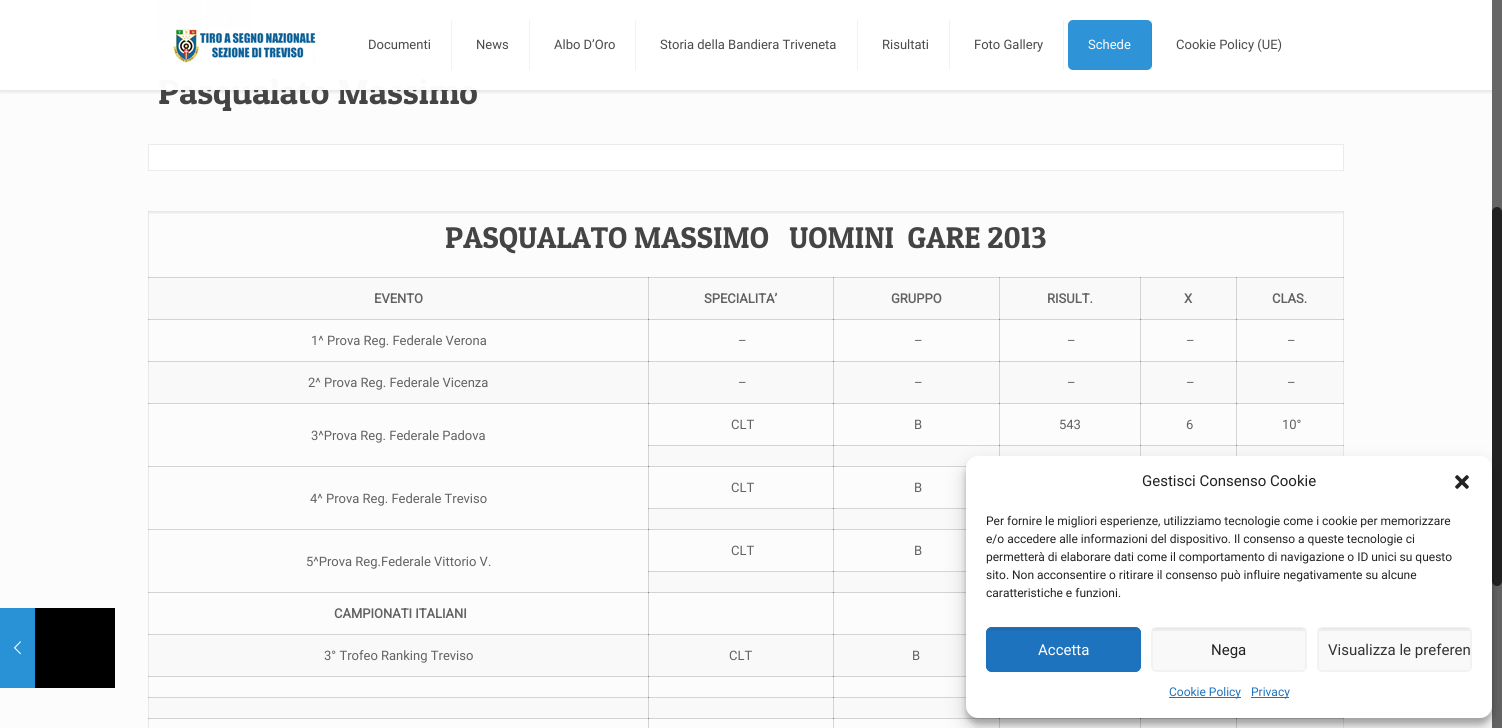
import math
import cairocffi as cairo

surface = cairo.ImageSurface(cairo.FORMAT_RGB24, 1502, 728)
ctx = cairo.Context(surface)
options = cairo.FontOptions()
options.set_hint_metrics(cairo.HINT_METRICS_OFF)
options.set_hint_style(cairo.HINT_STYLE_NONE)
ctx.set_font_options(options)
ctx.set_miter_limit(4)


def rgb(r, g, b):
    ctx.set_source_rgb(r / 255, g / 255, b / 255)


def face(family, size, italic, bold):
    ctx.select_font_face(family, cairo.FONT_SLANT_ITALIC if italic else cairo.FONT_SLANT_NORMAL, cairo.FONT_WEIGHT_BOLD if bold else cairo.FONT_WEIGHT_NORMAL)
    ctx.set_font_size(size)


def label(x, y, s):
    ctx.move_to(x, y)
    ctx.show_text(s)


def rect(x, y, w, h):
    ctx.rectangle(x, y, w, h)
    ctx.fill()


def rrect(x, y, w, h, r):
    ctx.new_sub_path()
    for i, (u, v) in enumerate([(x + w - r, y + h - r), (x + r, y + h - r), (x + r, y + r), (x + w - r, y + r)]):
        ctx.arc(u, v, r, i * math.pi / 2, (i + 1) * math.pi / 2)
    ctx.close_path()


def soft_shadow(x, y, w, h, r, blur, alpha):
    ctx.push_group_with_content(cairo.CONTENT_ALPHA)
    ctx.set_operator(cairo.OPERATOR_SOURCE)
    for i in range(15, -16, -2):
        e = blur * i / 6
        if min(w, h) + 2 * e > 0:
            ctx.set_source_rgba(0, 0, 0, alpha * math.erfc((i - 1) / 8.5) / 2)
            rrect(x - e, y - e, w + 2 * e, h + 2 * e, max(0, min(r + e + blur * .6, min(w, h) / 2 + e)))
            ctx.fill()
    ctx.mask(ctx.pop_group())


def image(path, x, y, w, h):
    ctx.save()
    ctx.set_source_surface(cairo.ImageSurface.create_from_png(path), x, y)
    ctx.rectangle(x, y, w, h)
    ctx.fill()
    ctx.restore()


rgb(252, 252, 252)
ctx.paint()
rgb(232, 232, 232)
rect(148, 211, 1, 517)
rect(1343, 211, 1, 245)
rgb(213, 213, 213)
rect(148, 277, 1196, 1)
rgb(180, 180, 180)
rect(148, 277, 1, 1)
rgb(166, 166, 166)
rect(648, 277, 1, 1)
rect(833, 277, 1, 1)
rect(999, 277, 1, 1)
rect(1140, 277, 1, 1)
rgb(180, 180, 180)
rect(148, 319, 1, 1)
rgb(213, 213, 213)
rect(648, 319, 1, 43)
rect(833, 319, 1, 43)
rect(999, 319, 1, 43)
rect(1140, 319, 1, 43)
rect(1236, 319, 1, 43)
rgb(180, 180, 180)
rect(1343, 319, 1, 1)
rgb(213, 213, 213)
rect(148, 361, 1196, 1)
rgb(180, 180, 180)
rect(148, 361, 1, 1)
rgb(130, 130, 130)
rect(648, 361, 1, 1)
rect(833, 361, 1, 1)
rect(999, 361, 1, 1)
rect(1140, 361, 1, 1)
rgb(180, 180, 180)
rect(148, 403, 1, 1)
rgb(213, 213, 213)
rect(648, 403, 1, 43)
rect(833, 403, 1, 43)
rect(999, 403, 1, 43)
rect(1140, 403, 1, 43)
rect(1236, 403, 1, 43)
rgb(180, 180, 180)
rect(1343, 403, 1, 1)
rgb(213, 213, 213)
rect(648, 445, 696, 1)
rgb(166, 166, 166)
rect(648, 445, 1, 1)
rgb(130, 130, 130)
rect(833, 445, 1, 1)
rect(999, 445, 1, 1)
rect(1140, 445, 1, 1)
rgb(213, 213, 213)
rect(148, 466, 501, 1)
rgb(180, 180, 180)
rect(148, 466, 1, 1)
rgb(213, 213, 213)
rect(648, 466, 1, 43)
rect(833, 466, 1, 43)
rect(648, 508, 318, 1)
rgb(166, 166, 166)
rect(648, 508, 1, 1)
rgb(130, 130, 130)
rect(833, 508, 1, 1)
rgb(213, 213, 213)
rect(148, 529, 501, 1)
rgb(180, 180, 180)
rect(148, 529, 1, 1)
rgb(213, 213, 213)
rect(648, 529, 1, 43)
rect(833, 529, 1, 43)
rect(648, 571, 318, 1)
rgb(166, 166, 166)
rect(648, 571, 1, 1)
rgb(130, 130, 130)
rect(833, 571, 1, 1)
rgb(213, 213, 213)
rect(148, 592, 501, 1)
rgb(180, 180, 180)
rect(148, 592, 1, 1)
rgb(213, 213, 213)
rect(648, 592, 1, 43)
rect(833, 592, 1, 43)
rect(148, 634, 818, 1)
rgb(180, 180, 180)
rect(148, 634, 1, 1)
rgb(130, 130, 130)
rect(648, 634, 1, 1)
rect(833, 634, 1, 1)
rgb(180, 180, 180)
rect(148, 676, 1, 1)
rgb(213, 213, 213)
rect(648, 676, 1, 22)
rect(833, 676, 1, 22)
rect(148, 697, 818, 1)
rgb(180, 180, 180)
rect(148, 697, 1, 1)
rgb(130, 130, 130)
rect(648, 697, 1, 1)
rect(833, 697, 1, 1)
rgb(180, 180, 180)
rect(148, 718, 1, 1)
rgb(213, 213, 213)
rect(648, 718, 1, 10)
rect(833, 718, 1, 10)
rect(999, 718, 1, 10)
rect(1140, 718, 1, 10)
rect(1236, 718, 1, 10)
rgb(232, 232, 232)
rect(1343, 718, 1, 10)
rgb(180, 180, 180)
rect(1343, 718, 1, 1)
image('image1.png', 148, 0, 1196, 54)
rgb(247, 247, 247)
rrect(158, 1, 44, 43, 5)
ctx.fill()
ctx.set_source_rgba(0, 0, 0, 0.05)
rect(159, 1, 42, 3)
ctx.rectangle(158.5, 1.5, 43, 42)
ctx.set_source_rgba(0, 0, 0, 0.03)
ctx.set_line_width(1)
ctx.stroke()
ctx.set_source_rgba(0, 0, 0, 0.05)
rect(158, 1, 44, 43)
image('image2.png', 178, 18, 5, 9)
rgb(247, 247, 247)
rrect(207, 1, 45, 43, 5)
ctx.fill()
ctx.set_source_rgba(0, 0, 0, 0.05)
rect(208, 1, 43, 3)
ctx.rectangle(207.5, 1.5, 44, 42)
ctx.set_source_rgba(0, 0, 0, 0.03)
ctx.stroke()
ctx.set_source_rgba(0, 0, 0, 0.05)
rect(207, 1, 45, 43)
image('image3.png', 227, 18, 5, 9)
ctx.save()
ctx.rectangle(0, 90, 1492, 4)
ctx.clip()
rgb(0, 0, 0)
soft_shadow(0, 2, 1502, 90, 0, 2.5, 0.1)
ctx.restore()
face('Patua One', 35, 0, 0)
rgb(68, 68, 68)
label(158, 104, 'Pasqualato Massimo')
ctx.set_source_rgba(1, 1, 1, 0.97)
rect(0, 0, 1492, 90)
image('image0.png', 173, 29, 143, 34)
rgb(242, 242, 242)
rect(451, 20, 1, 50)
face('Roboto', 13, 0, 0)
rgb(74, 74, 74)
label(368, 49, 'Documenti')
rgb(242, 242, 242)
rect(529, 20, 1, 50)
rgb(74, 74, 74)
label(476, 49, 'News')
rgb(242, 242, 242)
rect(635, 20, 1, 50)
rgb(74, 74, 74)
label(554, 49, 'Albo D’Oro')
rgb(242, 242, 242)
rect(857, 20, 1, 50)
rgb(74, 74, 74)
label(660, 49, 'Storia della Bandiera Triveneta')
rgb(242, 242, 242)
rect(949, 20, 1, 50)
rgb(74, 74, 74)
label(882, 49, 'Risultati')
rgb(242, 242, 242)
rect(1063, 20, 1, 50)
rgb(74, 74, 74)
label(974, 49, 'Foto Gallery')
rgb(47, 148, 215)
rrect(1068, 20, 84, 50, 5)
ctx.fill()
ctx.set_source_rgba(0, 0, 0, 0.05)
rect(1151, 20, 1, 50)
rgb(249, 252, 254)
label(1088, 49, 'Schede')
rgb(74, 74, 74)
label(1176, 49, 'Cookie Policy (UE)')
rgb(255, 255, 255)
ctx.rectangle(148.5, 144.5, 1195, 26)
ctx.fill_preserve()
rgb(235, 235, 235)
ctx.stroke()
image('image4.png', 149, 212, 1194, 2)
rgb(232, 232, 232)
rect(148, 211, 1196, 1)
rgb(213, 213, 213)
rect(148, 211, 1, 1)
rect(1343, 211, 1, 1)
face('Patua One', 30, 0, 0)
rgb(68, 68, 68)
label(445, 248, 'PASQUALATO MASSIMO   UOMINI  GARE 2013')
rgb(249, 249, 249)
rect(149, 278, 499, 41)
rgb(211, 211, 211)
rect(149, 319, 499, 1)
face('Roboto', 13, 0, 1)
rgb(98, 98, 98)
label(374, 303, 'EVENTO')
rgb(249, 249, 249)
rect(649, 278, 184, 41)
rgb(211, 211, 211)
rect(648, 278, 1, 42)
rect(833, 278, 1, 42)
rect(648, 319, 351, 1)
rgb(128, 128, 128)
rect(648, 319, 1, 1)
rect(833, 319, 1, 1)
rgb(98, 98, 98)
label(704, 303, 'SPECIALITA’')
rgb(249, 249, 249)
rect(834, 278, 165, 41)
rgb(98, 98, 98)
label(891, 303, 'GRUPPO')
rgb(249, 249, 249)
rect(1000, 278, 140, 41)
rgb(211, 211, 211)
rect(999, 278, 1, 42)
rect(999, 319, 141, 1)
rgb(128, 128, 128)
rect(999, 319, 1, 1)
rgb(98, 98, 98)
label(1047, 303, 'RISULT.')
rgb(249, 249, 249)
rect(1141, 278, 95, 41)
rgb(211, 211, 211)
rect(1140, 278, 1, 42)
rect(1236, 278, 1, 42)
rect(1140, 319, 203, 1)
rgb(128, 128, 128)
rect(1140, 319, 1, 1)
rect(1236, 319, 1, 1)
rgb(98, 98, 98)
label(1184, 303, 'X')
rgb(249, 249, 249)
rect(1237, 278, 106, 41)
rgb(166, 166, 166)
rect(1236, 277, 1, 1)
rgb(180, 180, 180)
rect(1343, 277, 1, 1)
rgb(98, 98, 98)
label(1272, 303, 'CLAS.')
face('Roboto', 13, 0, 0)
label(311, 345, '1^ Prova Reg. Federale Verona')
label(738, 345, '–')
label(914, 345, '–')
label(1067, 345, '–')
label(1186, 345, '–')
label(1287, 345, '–')
rgb(249, 249, 249)
rect(149, 362, 499, 41)
rgb(211, 211, 211)
rect(149, 403, 499, 1)
rgb(98, 98, 98)
label(308, 387, '2^ Prova Reg. Federale Vicenza')
rgb(249, 249, 249)
rect(649, 362, 184, 41)
rgb(211, 211, 211)
rect(648, 362, 1, 42)
rect(833, 362, 1, 42)
rect(648, 403, 351, 1)
rgb(128, 128, 128)
rect(648, 403, 1, 1)
rect(833, 403, 1, 1)
rgb(98, 98, 98)
label(738, 387, '–')
rgb(249, 249, 249)
rect(834, 362, 165, 41)
rgb(98, 98, 98)
label(914, 387, '–')
rgb(249, 249, 249)
rect(1000, 362, 140, 41)
rgb(211, 211, 211)
rect(999, 362, 1, 42)
rect(999, 403, 141, 1)
rgb(128, 128, 128)
rect(999, 403, 1, 1)
rgb(98, 98, 98)
label(1067, 387, '–')
rgb(249, 249, 249)
rect(1141, 362, 95, 41)
rgb(211, 211, 211)
rect(1140, 362, 1, 42)
rect(1236, 362, 1, 42)
rect(1140, 403, 203, 1)
rgb(128, 128, 128)
rect(1140, 403, 1, 1)
rect(1236, 403, 1, 1)
rgb(98, 98, 98)
label(1186, 387, '–')
rgb(249, 249, 249)
rect(1237, 362, 106, 41)
rgb(130, 130, 130)
rect(1236, 361, 1, 1)
rgb(180, 180, 180)
rect(1343, 361, 1, 1)
rgb(98, 98, 98)
label(1287, 387, '–')
label(731, 429, 'CLT')
label(914, 429, 'B')
label(1059, 429, '543')
label(1186, 429, '6')
label(1282, 429, '10°')
label(311, 440, '3^Prova Reg. Federale Padova')
rgb(249, 249, 249)
rect(649, 446, 184, 20)
rgb(211, 211, 211)
rect(648, 446, 1, 21)
rect(833, 446, 1, 21)
rect(648, 466, 319, 1)
rgb(128, 128, 128)
rect(648, 466, 1, 1)
rect(833, 466, 1, 1)
rgb(249, 249, 249)
rect(1237, 446, 106, 10)
rgb(130, 130, 130)
rect(1236, 445, 1, 1)
rgb(180, 180, 180)
rect(1343, 445, 1, 1)
rgb(249, 249, 249)
rect(834, 446, 165, 20)
rect(1000, 446, 140, 10)
rgb(211, 211, 211)
rect(999, 446, 1, 10)
rgb(249, 249, 249)
rect(1141, 446, 95, 10)
rgb(211, 211, 211)
rect(1140, 446, 1, 10)
rect(1236, 446, 1, 10)
rgb(98, 98, 98)
label(731, 492, 'CLT')
label(914, 492, 'B')
label(310, 503, '4^ Prova Reg. Federale Treviso')
rgb(249, 249, 249)
rect(649, 509, 184, 20)
rgb(211, 211, 211)
rect(648, 509, 1, 21)
rect(833, 509, 1, 21)
rect(648, 529, 318, 1)
rgb(128, 128, 128)
rect(648, 529, 1, 1)
rect(833, 529, 1, 1)
rgb(249, 249, 249)
rect(834, 509, 132, 20)
rgb(98, 98, 98)
label(731, 555, 'CLT')
label(914, 555, 'B')
label(306, 566, '5^Prova Reg.Federale Vittorio V.')
rgb(249, 249, 249)
rect(649, 572, 184, 20)
rgb(211, 211, 211)
rect(648, 572, 1, 21)
rect(833, 572, 1, 21)
rect(648, 592, 318, 1)
rgb(128, 128, 128)
rect(648, 592, 1, 1)
rect(833, 592, 1, 1)
rgb(249, 249, 249)
rect(834, 572, 132, 20)
face('Roboto', 13, 0, 1)
rgb(98, 98, 98)
label(334, 618, 'CAMPIONATI ITALIANI')
rgb(249, 249, 249)
rect(149, 635, 499, 41)
rgb(211, 211, 211)
rect(149, 676, 499, 1)
face('Roboto', 13, 0, 0)
rgb(98, 98, 98)
label(324, 660, '3° Trofeo Ranking Treviso')
rgb(249, 249, 249)
rect(649, 635, 184, 41)
rgb(211, 211, 211)
rect(648, 635, 1, 42)
rect(833, 635, 1, 42)
rect(648, 676, 318, 1)
rgb(128, 128, 128)
rect(648, 676, 1, 1)
rect(833, 676, 1, 1)
rgb(98, 98, 98)
label(729, 660, 'CLT')
rgb(249, 249, 249)
rect(834, 635, 132, 41)
rgb(98, 98, 98)
label(912, 660, 'B')
rgb(249, 249, 249)
rect(149, 698, 499, 20)
rgb(211, 211, 211)
rect(149, 718, 499, 1)
rgb(249, 249, 249)
rect(649, 698, 184, 20)
rgb(211, 211, 211)
rect(648, 698, 1, 21)
rect(833, 698, 1, 21)
rect(648, 718, 695, 1)
rgb(128, 128, 128)
rect(648, 718, 1, 1)
rect(833, 718, 1, 1)
rgb(249, 249, 249)
rect(834, 698, 144, 20)
rgb(128, 128, 128)
rect(999, 718, 1, 1)
rect(1140, 718, 1, 1)
rect(1236, 718, 1, 1)
rgb(102, 102, 102)
rect(1492, 0, 10, 728)
rgb(34, 34, 34)
rrect(1492, 207, 10, 379, 5)
ctx.fill()
rgb(41, 145, 214)
rect(0, 608, 35, 80)
image('image5.png', 14, 641, 7, 14)
rgb(0, 0, 0)
rect(35, 608, 80, 80)
rgb(0, 0, 0)
soft_shadow(966, 462, 526, 262, 12, 3, 0.23)
soft_shadow(966, 466, 526, 262, 12, 10, 0.19)
rgb(255, 255, 255)
rrect(966, 456, 526, 262, 12)
ctx.fill()
face('Roboto', 15, 0, 0)
rgb(34, 34, 34)
label(1142, 486, 'Gestisci Consenso Cookie')
image('image6.png', 1455, 475, 14, 14)
face('Roboto', 12, 0, 0)
label(986, 525, 'Per fornire le migliori esperienze, utilizziamo tecnologie come i cookie per memorizzare')
label(986, 543, 'e/o accedere alle informazioni del dispositivo. Il consenso a queste tecnologie ci')
label(986, 561, 'permetterà di elaborare dati come il comportamento di navigazione o ID unici su questo')
label(986, 579, 'sito. Non acconsentire o ritirare il consenso può influire negativamente su alcune')
label(986, 597, 'caratteristiche e funzioni.')
rgb(30, 115, 190)
rrect(986, 627, 155, 45, 6)
ctx.fill()
ctx.set_source_rgba(0, 0, 0, 0.05)
rect(987, 628, 153, 3)
ctx.rectangle(987.5, 628.5, 152, 42)
ctx.set_source_rgba(0, 0, 0, 0.03)
ctx.stroke()
rrect(986.5, 627.5, 154, 44, 5.5)
rgb(30, 115, 190)
ctx.stroke()
face('Roboto', 15, 0, 0)
rgb(255, 255, 255)
label(1038, 655, 'Accetta')
rgb(249, 249, 249)
rrect(1151, 627, 156, 45, 6)
ctx.fill()
ctx.set_source_rgba(0, 0, 0, 0.05)
rect(1152, 628, 154, 3)
ctx.rectangle(1152.5, 628.5, 153, 42)
ctx.set_source_rgba(0, 0, 0, 0.03)
ctx.stroke()
rrect(1151.5, 627.5, 155, 44, 5.5)
rgb(242, 242, 242)
ctx.stroke()
rgb(34, 34, 34)
label(1211, 655, 'Nega')
rgb(249, 249, 249)
rrect(1317, 627, 155, 45, 6)
ctx.fill()
ctx.set_source_rgba(0, 0, 0, 0.05)
rect(1318, 628, 153, 3)
ctx.rectangle(1318.5, 628.5, 152, 42)
ctx.set_source_rgba(0, 0, 0, 0.03)
ctx.stroke()
rrect(1317.5, 627.5, 154, 44, 5.5)
rgb(242, 242, 242)
ctx.stroke()
rgb(51, 51, 51)
label(1328, 655, 'Visualizza le preferen')
rgb(30, 115, 190)
rect(1169, 697, 72, 1)
face('Roboto', 12, 0, 0)
label(1169, 696, 'Cookie Policy')
rect(1251, 697, 38, 1)
label(1251, 696, 'Privacy')
surface.write_to_png('render.png')
